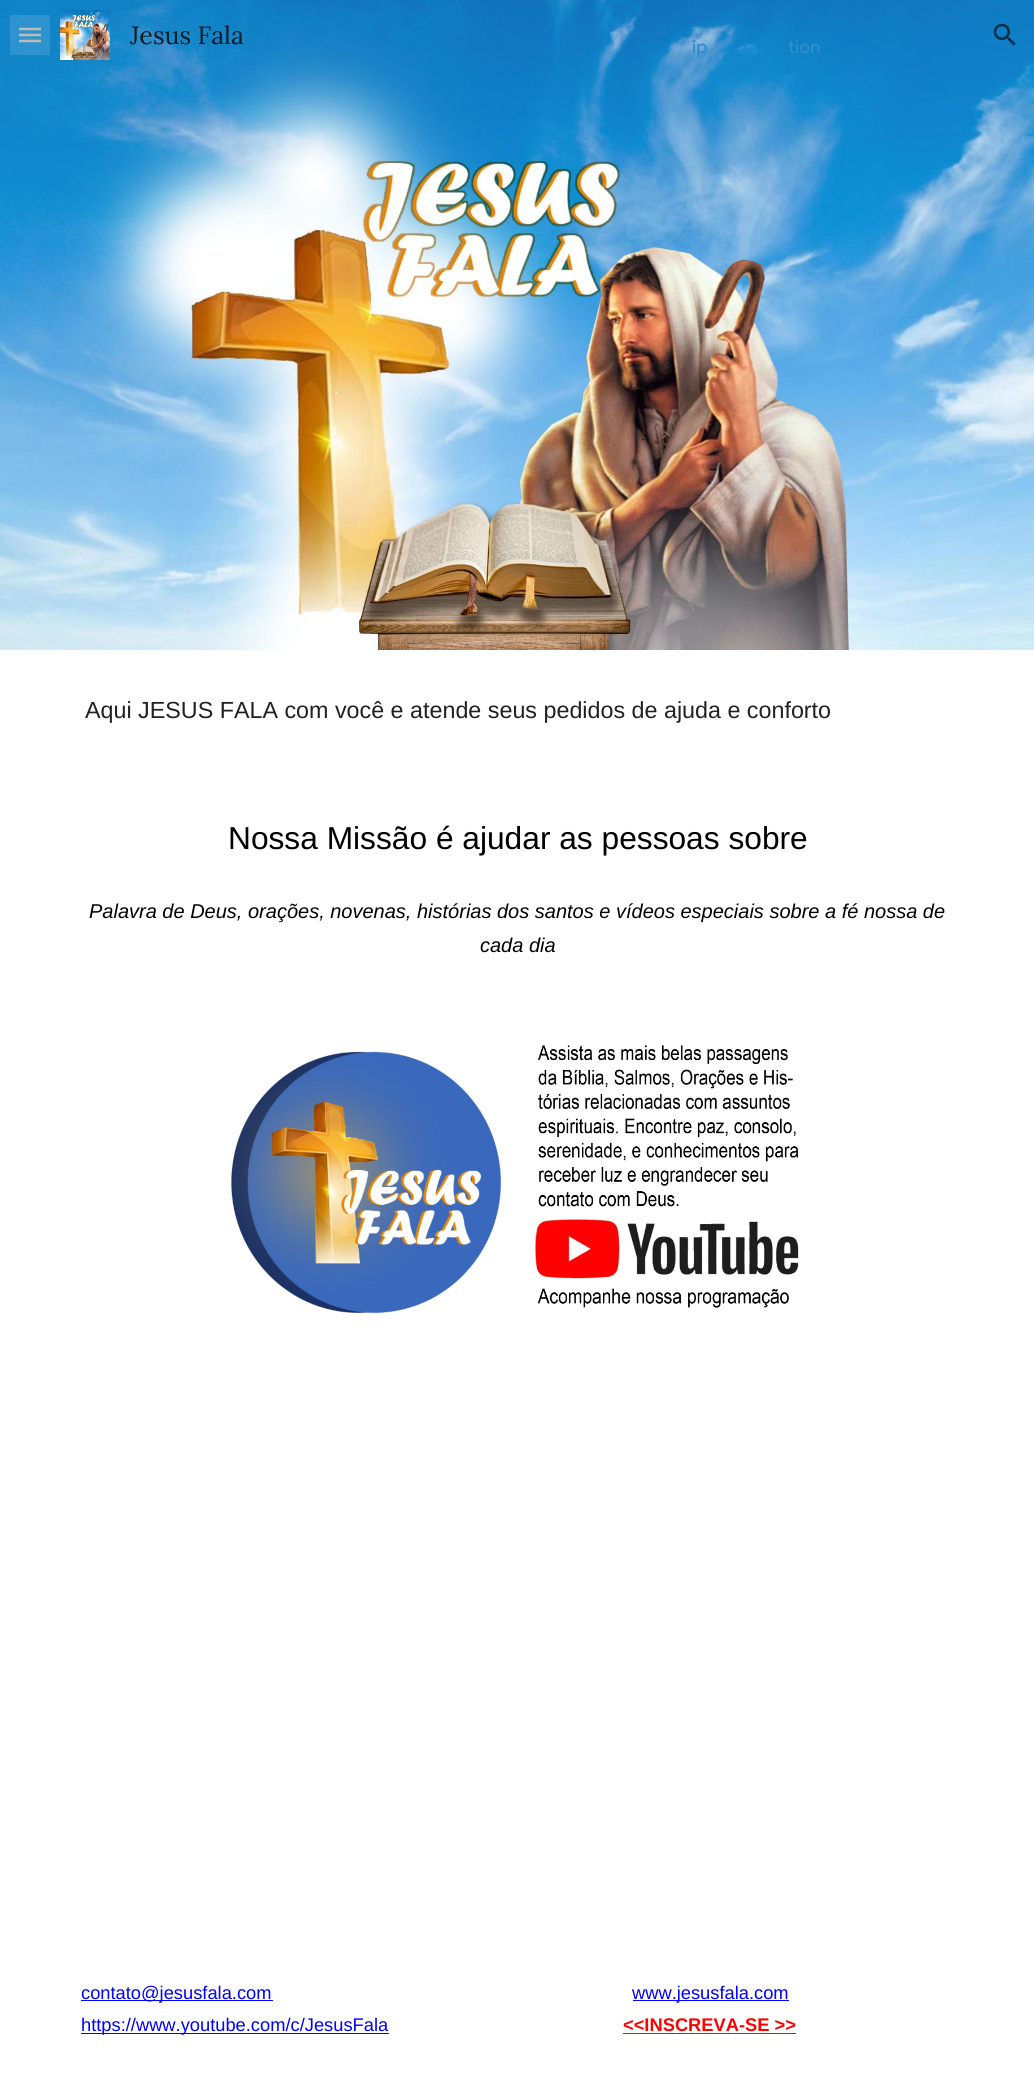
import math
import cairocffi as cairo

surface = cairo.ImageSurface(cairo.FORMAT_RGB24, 1034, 2081)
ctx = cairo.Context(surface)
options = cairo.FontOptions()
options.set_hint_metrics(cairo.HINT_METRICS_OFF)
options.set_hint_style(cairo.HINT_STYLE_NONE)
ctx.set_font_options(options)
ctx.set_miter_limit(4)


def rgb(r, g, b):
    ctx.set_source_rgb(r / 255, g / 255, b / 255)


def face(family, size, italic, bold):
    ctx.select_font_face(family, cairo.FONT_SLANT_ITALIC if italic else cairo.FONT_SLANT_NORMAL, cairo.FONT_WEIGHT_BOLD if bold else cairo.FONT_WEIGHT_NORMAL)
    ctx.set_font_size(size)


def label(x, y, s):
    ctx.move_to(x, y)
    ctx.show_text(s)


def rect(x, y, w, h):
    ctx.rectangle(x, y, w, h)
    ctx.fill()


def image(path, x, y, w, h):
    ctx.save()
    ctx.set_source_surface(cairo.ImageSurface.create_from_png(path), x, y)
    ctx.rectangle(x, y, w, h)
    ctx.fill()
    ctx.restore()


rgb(255, 255, 255)
ctx.paint()
image('image2.png', 0, 0, 1034, 650)
ctx.new_path()
ctx.move_to(19, 29)
ctx.line_to(41, 29)
ctx.move_to(19, 35)
ctx.line_to(41, 35)
ctx.move_to(19, 41)
ctx.line_to(41, 41)
rgb(178, 178, 178)
ctx.set_line_width(2.5)
ctx.stroke()
ctx.set_source_rgba(1, 1, 1, 0.12)
rect(10, 15, 40, 40)
image('image0.png', 60, 10, 50, 50)
face('Lora', 25, 0, 0)
rgb(6, 27, 40)
label(130, 44, 'Jesus Fala')
image('image1.png', 993, 23, 23, 23)
face('Liberation Sans', 23.3, 0, 0)
rgb(33, 33, 33)
label(85, 718, 'Aqui JESUS FALA com você e atende seus pedidos de ajuda e conforto')
face('Liberation Sans', 31.7, 0, 0)
rgb(0, 0, 0)
label(228, 849, 'Nossa Missão é ajudar as pessoas sobre')
face('Liberation Sans', 20, 1, 0)
label(89, 918, 'Palavra de Deus, orações, novenas, histórias dos santos e vídeos especiais sobre a fé nossa de')
label(480, 952, 'cada dia')
image('image3.png', 231, 1051, 270, 262)
image('image4.png', 535, 1045, 264, 263)
rgb(0, 0, 255)
rect(81, 2000, 192, 1)
face('Liberation Sans', 18.3, 0, 0)
label(81, 1999, 'contato@jesusfala.com')
rect(633, 2000, 156, 1)
label(632, 1999, 'www.jesusfala.com')
rect(81, 2033, 308, 1)
label(81, 2031, 'https://www.youtube.com/c/JesusFala')
face('Liberation Sans', 18.3, 0, 1)
rgb(255, 0, 0)
label(623, 2031, '<<INSCREVA-SE >>')
rect(623, 2033, 173, 1)
face('Google Sans Medium', 18, 0, 0)
rgb(45, 142, 205)
label(692, 53, 'ip')
label(788, 53, 'tion')
surface.write_to_png('render.png')
